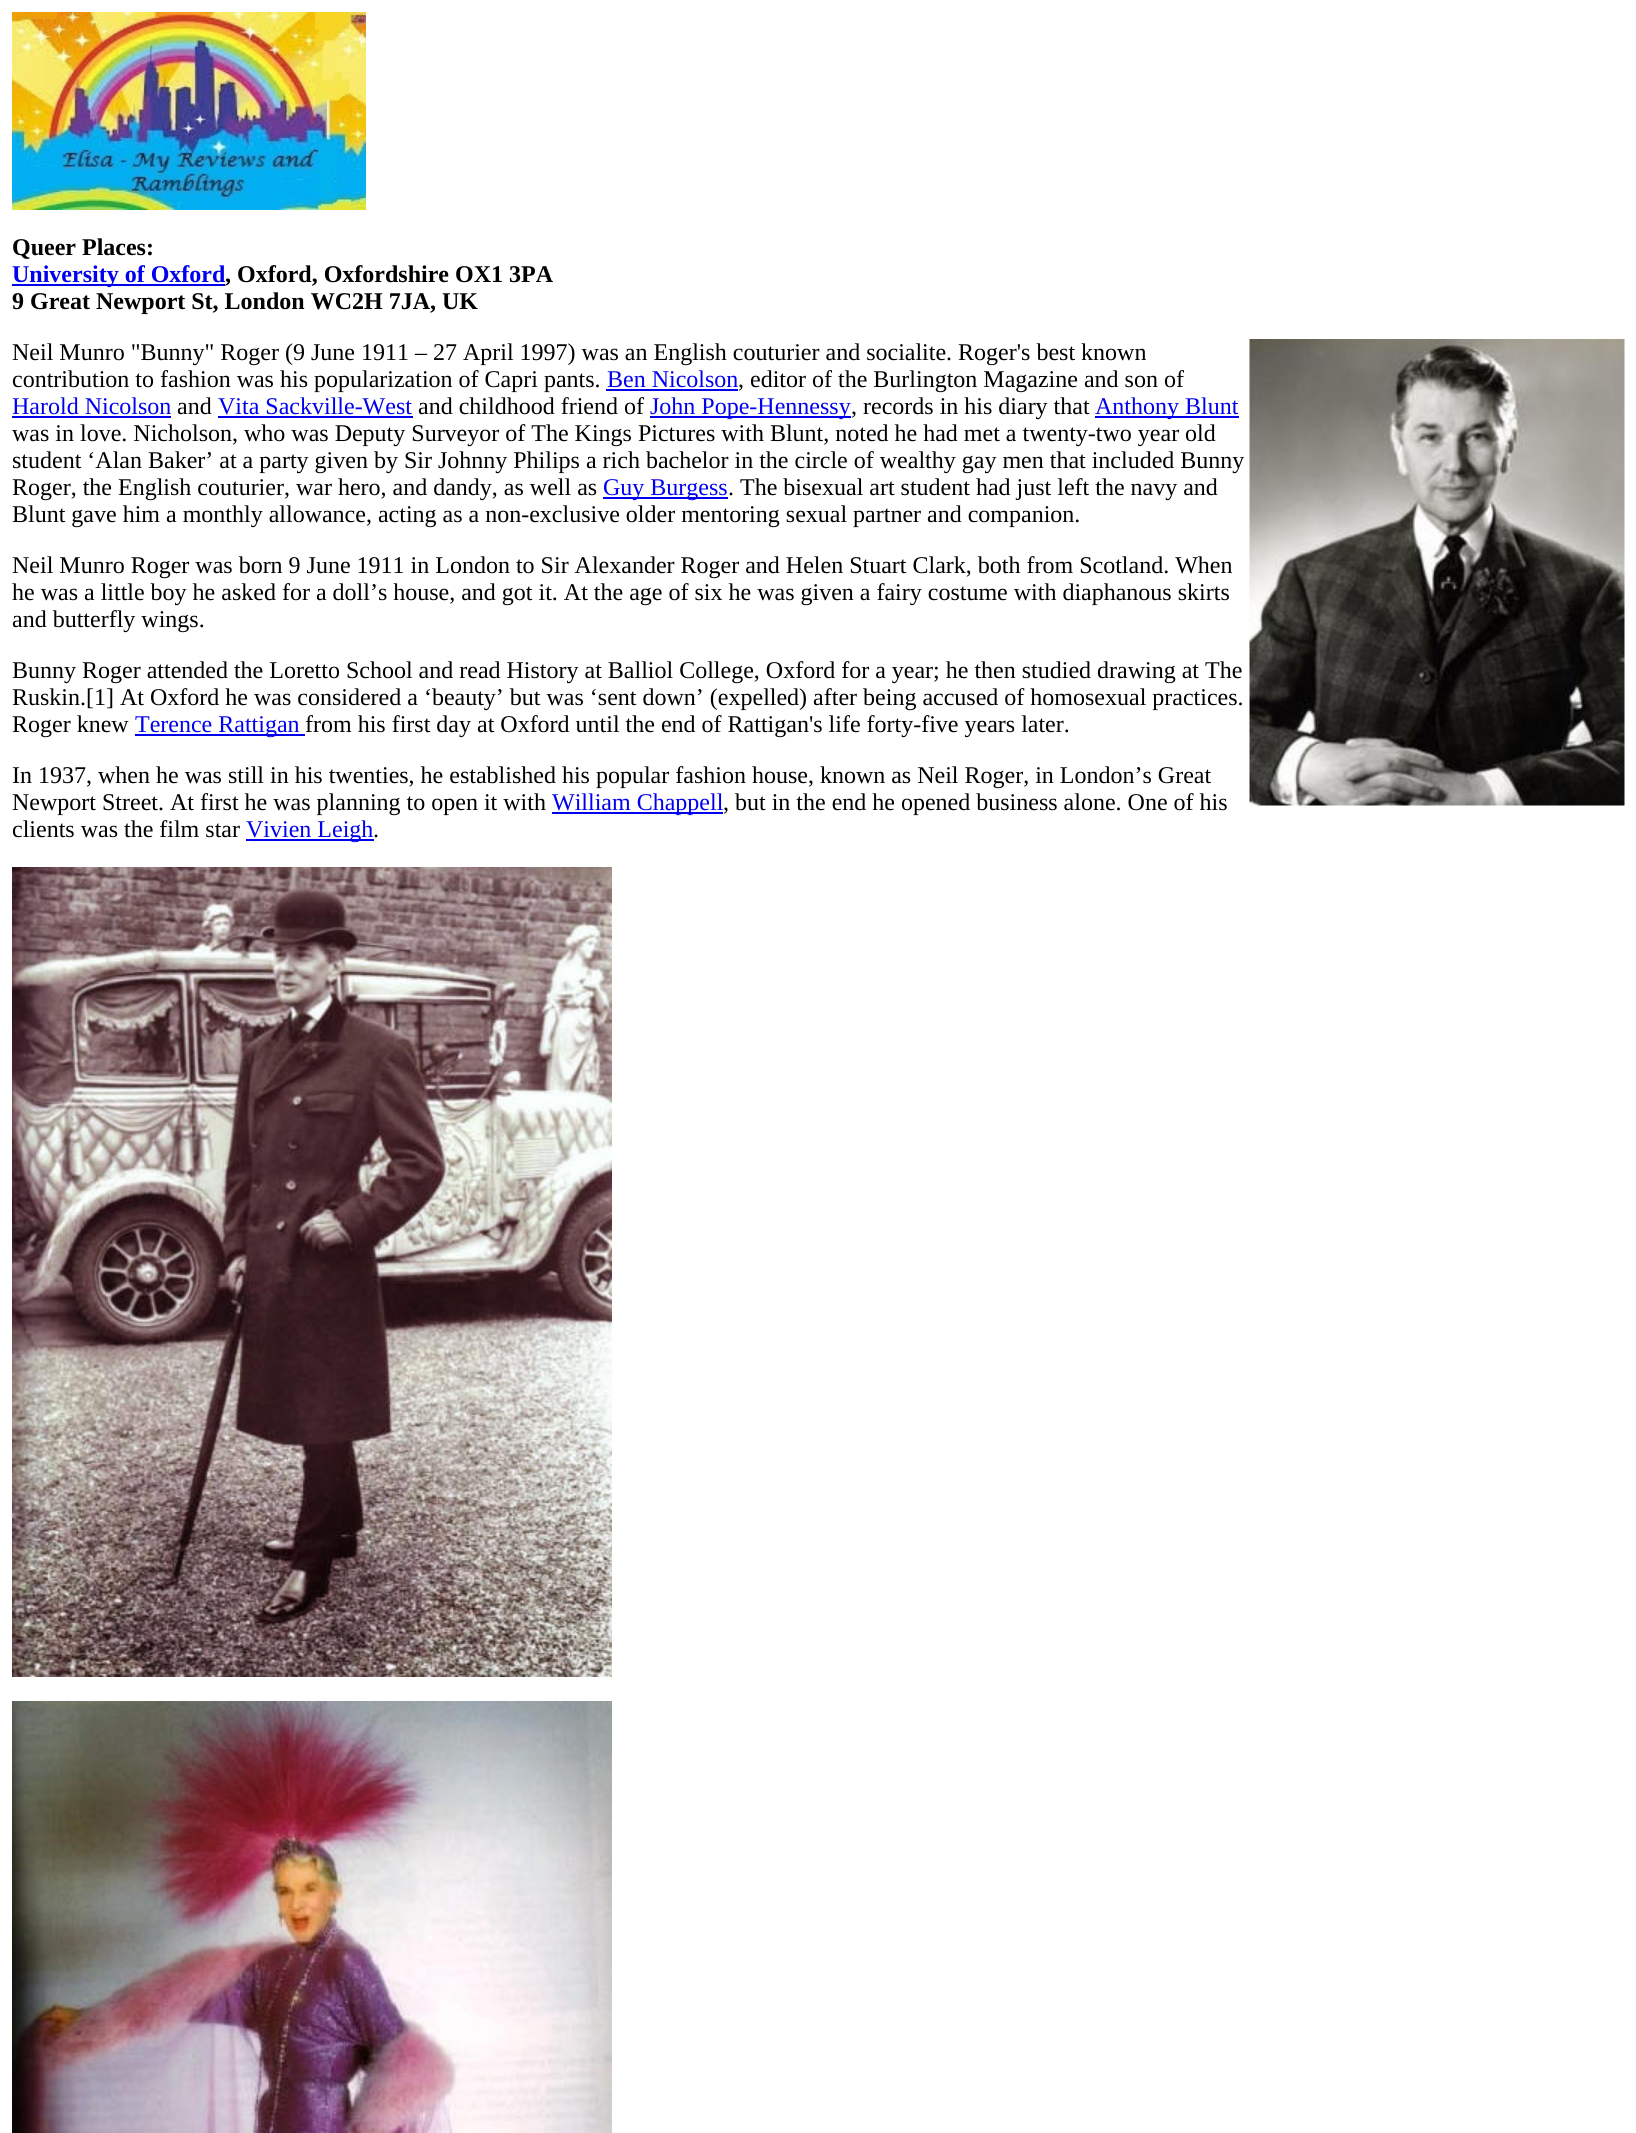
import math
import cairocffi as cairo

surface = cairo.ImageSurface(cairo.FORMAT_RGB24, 1636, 2133)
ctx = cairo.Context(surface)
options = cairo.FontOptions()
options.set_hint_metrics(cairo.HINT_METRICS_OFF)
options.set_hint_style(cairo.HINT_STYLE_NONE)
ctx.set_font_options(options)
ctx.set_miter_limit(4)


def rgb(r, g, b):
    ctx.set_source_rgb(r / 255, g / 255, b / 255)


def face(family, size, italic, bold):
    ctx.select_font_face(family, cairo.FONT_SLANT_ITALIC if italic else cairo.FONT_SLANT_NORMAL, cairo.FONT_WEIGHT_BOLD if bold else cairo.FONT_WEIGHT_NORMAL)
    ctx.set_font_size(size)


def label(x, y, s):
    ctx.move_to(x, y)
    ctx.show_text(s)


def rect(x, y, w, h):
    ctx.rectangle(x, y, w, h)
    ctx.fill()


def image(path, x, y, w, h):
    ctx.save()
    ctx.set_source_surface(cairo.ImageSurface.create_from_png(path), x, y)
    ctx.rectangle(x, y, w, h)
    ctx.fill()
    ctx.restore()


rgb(255, 255, 255)
ctx.paint()
image('image0.png', 12, 12, 354, 198)
face('Liberation Serif', 24, 0, 1)
rgb(0, 0, 0)
label(12, 255, 'Queer Places:')
rgb(0, 0, 238)
rect(12, 284, 213, 2)
label(12, 282, 'University of Oxford')
rgb(0, 0, 0)
label(225, 282, ', Oxford, Oxfordshire OX1 3PA')
label(12, 309, '9 Great Newport St, London WC2H 7JA, UK')
face('Liberation Serif', 24, 0, 0)
label(12, 360, 'Neil Munro "Bunny" Roger (9 June 1911 – 27 April 1997) was an English couturier and socialite. Roger\'s best known')
image('image1.png', 1249, 339, 376, 467)
label(12, 387, 'contribution to fashion was his popularization of Capri pants.')
rgb(0, 0, 238)
label(607, 387, 'Ben Nicolson')
rect(606, 389, 132, 2)
rgb(0, 0, 0)
label(738, 387, ', editor of the Burlington Magazine and son of')
rgb(0, 0, 238)
label(12, 414, 'Harold Nicolson')
rect(12, 416, 159, 2)
rgb(0, 0, 0)
label(177, 414, 'and')
rgb(0, 0, 238)
label(218, 414, 'Vita Sackville-West')
rect(218, 416, 195, 2)
rgb(0, 0, 0)
label(418, 414, 'and childhood friend of')
rgb(0, 0, 238)
rect(650, 416, 201, 2)
label(650, 414, 'John Pope-Hennessy')
rgb(0, 0, 0)
label(851, 414, ', records in his diary that')
rgb(0, 0, 238)
rect(1095, 416, 144, 2)
label(1095, 414, 'Anthony Blunt')
rgb(0, 0, 0)
label(12, 441, 'was in love. Nicholson, who was Deputy Surveyor of The Kings Pictures with Blunt, noted he had met a twenty-two year old')
label(12, 468, 'student ‘Alan Baker’ at a party given by Sir Johnny Philips a rich bachelor in the circle of wealthy gay men that included Bunny')
label(12, 495, 'Roger, the English couturier, war hero, and dandy, as well as')
rgb(0, 0, 238)
rect(603, 497, 125, 2)
label(603, 495, 'Guy Burgess')
rgb(0, 0, 0)
label(728, 495, '. The bisexual art student had just left the navy and')
label(12, 522, 'Blunt gave him a monthly allowance, acting as a non-exclusive older mentoring sexual partner and companion.')
label(12, 573, 'Neil Munro Roger was born 9 June 1911 in London to Sir Alexander Roger and Helen Stuart Clark, both from Scotland. When')
label(12, 600, 'he was a little boy he asked for a doll’s house, and got it. At the age of six he was given a fairy costume with diaphanous skirts')
label(12, 627, 'and butterfly wings.')
label(12, 678, 'Bunny Roger attended the Loretto School and read History at Balliol College, Oxford for a year; he then studied drawing at The')
label(12, 705, 'Ruskin.[1] At Oxford he was considered a ‘beauty’ but was ‘sent down’ (expelled) after being accused of homosexual practices.')
label(12, 732, 'Roger knew')
rgb(0, 0, 238)
rect(135, 734, 170, 2)
label(135, 732, 'Terence Rattigan')
rgb(0, 0, 0)
label(305, 732, 'from his first day at Oxford until the end of Rattigan\'s life forty-five years later.')
label(12, 783, 'In 1937, when he was still in his twenties, he established his popular fashion house, known as Neil Roger, in London’s Great')
label(12, 810, 'Newport Street. At first he was planning to open it with')
rgb(0, 0, 238)
rect(552, 812, 171, 2)
label(552, 810, 'William Chappell')
rgb(0, 0, 0)
label(723, 810, ', but in the end he opened business alone. One of his')
label(12, 837, 'clients was the film star')
rgb(0, 0, 238)
rect(246, 839, 128, 2)
label(246, 837, 'Vivien Leigh')
rgb(0, 0, 0)
label(373, 837, '.')
image('image2.png', 12, 867, 600, 810)
image('image3.png', 12, 1701, 600, 432)
surface.write_to_png('render.png')
